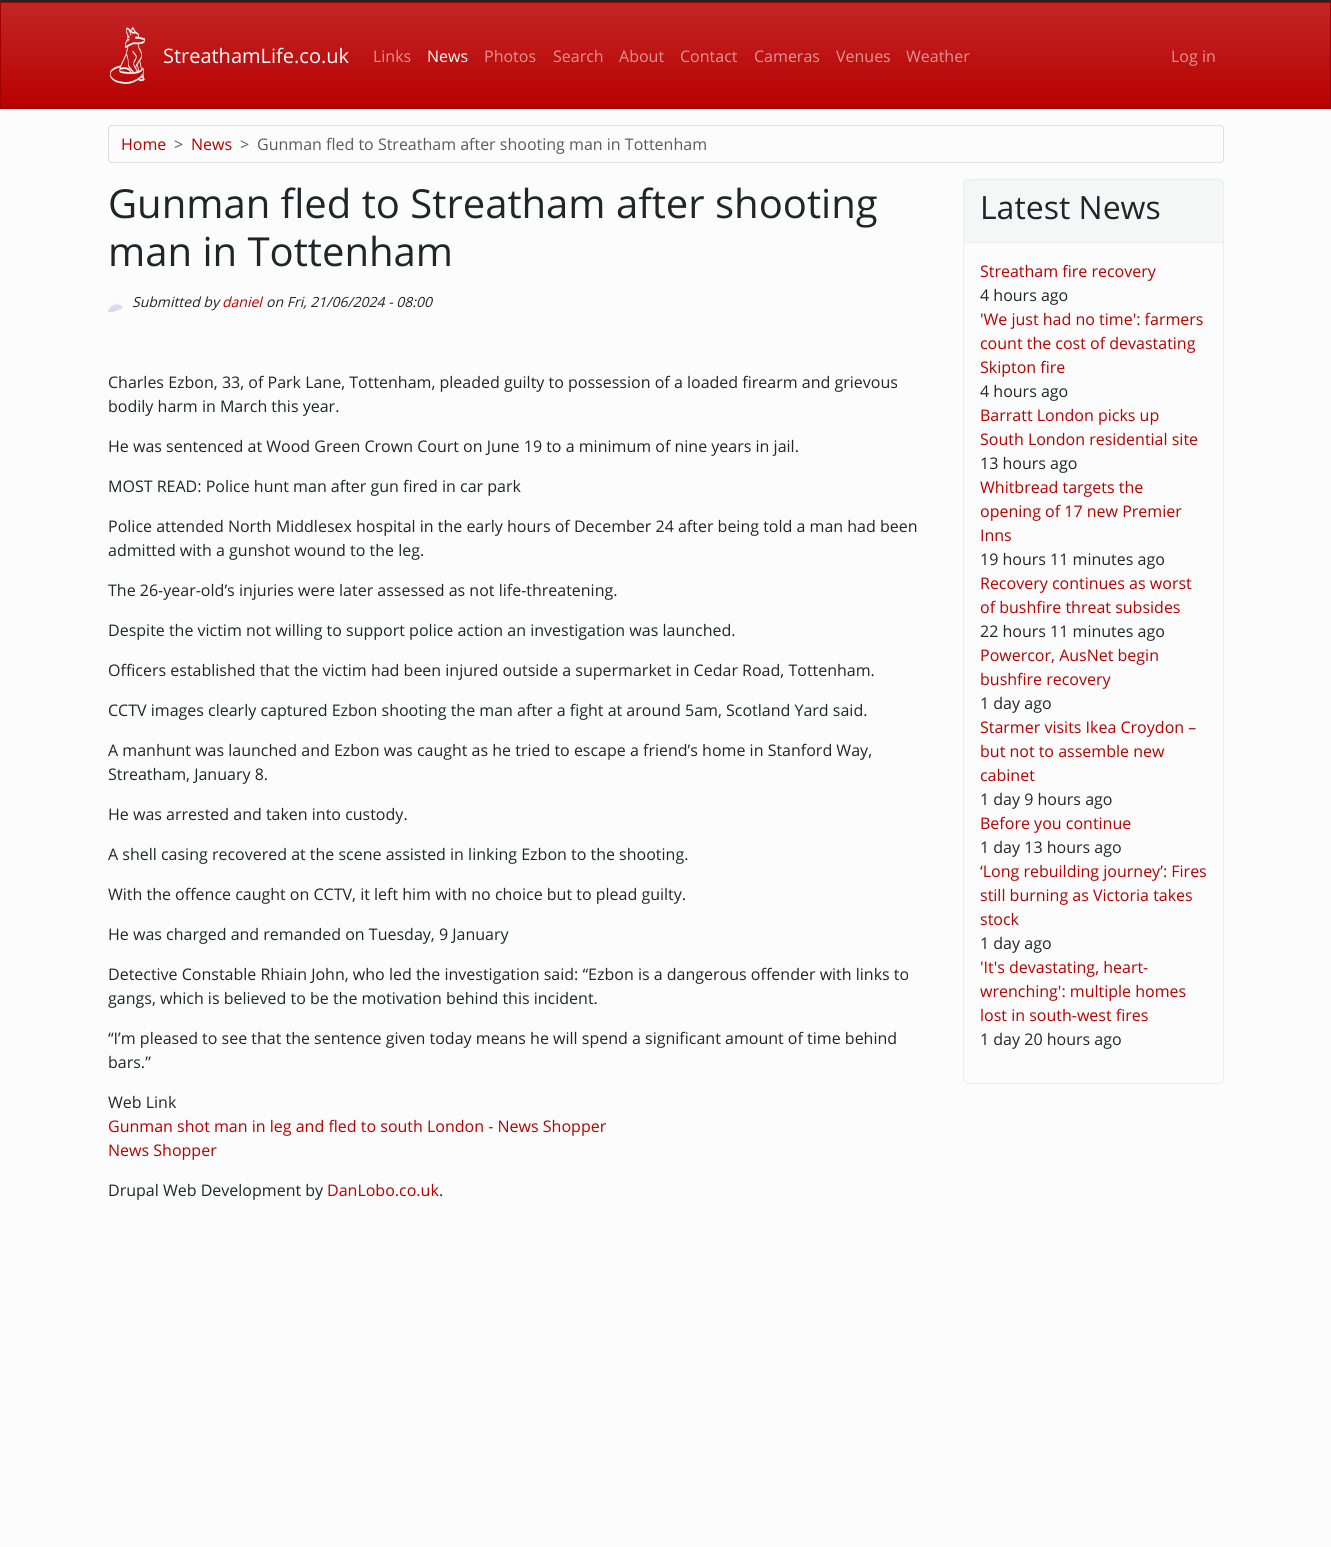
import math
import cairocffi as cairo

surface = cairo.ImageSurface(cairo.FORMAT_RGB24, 1331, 1547)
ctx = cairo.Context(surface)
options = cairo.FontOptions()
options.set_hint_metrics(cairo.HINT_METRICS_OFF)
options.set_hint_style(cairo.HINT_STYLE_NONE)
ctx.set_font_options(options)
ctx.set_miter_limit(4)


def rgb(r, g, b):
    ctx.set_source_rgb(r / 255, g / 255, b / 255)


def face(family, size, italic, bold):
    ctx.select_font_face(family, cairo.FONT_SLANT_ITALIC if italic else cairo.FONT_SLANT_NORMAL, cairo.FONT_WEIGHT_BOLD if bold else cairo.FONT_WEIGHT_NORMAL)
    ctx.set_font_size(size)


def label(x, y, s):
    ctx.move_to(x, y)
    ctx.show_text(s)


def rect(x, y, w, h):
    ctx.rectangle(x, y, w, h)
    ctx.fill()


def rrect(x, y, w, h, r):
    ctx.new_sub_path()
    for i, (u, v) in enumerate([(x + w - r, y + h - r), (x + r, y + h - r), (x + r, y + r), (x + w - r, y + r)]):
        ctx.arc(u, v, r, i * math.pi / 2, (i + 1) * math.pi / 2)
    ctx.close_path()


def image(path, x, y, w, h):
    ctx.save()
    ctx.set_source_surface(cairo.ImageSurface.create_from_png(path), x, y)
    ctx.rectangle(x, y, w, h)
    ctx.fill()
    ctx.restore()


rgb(252, 252, 252)
ctx.paint()
rgb(33, 37, 41)
rect(0, 0, 1331, 2)
gradient = cairo.LinearGradient(666, 3, 666, 108)
gradient.add_color_stop_rgba(0, 0.765, 0.149, 0.149, 1)
gradient.add_color_stop_rgba(1, 0.722, 0, 0, 1)
ctx.set_source(gradient)
rect(1, 3, 1329, 105)
ctx.rectangle(0.5, 2.5, 1330, 106)
rgb(160, 0, 0)
ctx.set_line_width(1)
ctx.stroke()
image('image0.png', 110, 27, 35, 57)
face('Open Sans', 20, 0, 0)
rgb(255, 255, 255)
label(163, 63, 'StreathamLife.co.uk')
face('Open Sans', 16, 0, 0)
rgb(225, 149, 149)
label(373, 62, 'Links')
rgb(255, 255, 255)
label(427, 62, 'News')
rgb(225, 149, 149)
label(484, 62, 'Photos')
label(553, 62, 'Search')
label(619, 62, 'About')
label(680, 62, 'Contact')
label(754, 62, 'Cameras')
label(836, 62, 'Venues')
label(906, 62, 'Weather')
label(1171, 62, 'Log in')
rrect(108.5, 125.5, 1115, 37, 3.5)
rgb(222, 222, 222)
ctx.stroke()
rgb(184, 0, 0)
label(121, 150, 'Home')
rgb(88, 91, 94)
label(174, 150, '>')
rgb(184, 0, 0)
label(191, 150, 'News')
rgb(88, 91, 94)
label(240, 150, '>')
label(257, 150, 'Gunman fled to Streatham after shooting man in Tottenham')
face('Open Sans', 40, 0, 0)
rgb(33, 37, 41)
label(108, 218, 'Gunman fled to Streatham after shooting')
label(108, 266, 'man in Tottenham')
image('image1.png', 108, 292, 16, 20)
face('Open Sans', 14, 1, 0)
label(132, 307, 'Submitted by')
rgb(184, 0, 0)
label(222, 307, 'daniel')
rgb(33, 37, 41)
label(266, 307, 'on Fri, 21/06/2024 - 08:00')
face('Open Sans', 16, 0, 0)
label(108, 388, 'Charles Ezbon, 33, of Park Lane, Tottenham, pleaded guilty to possession of a loaded firearm and grievous')
label(108, 412, 'bodily harm in March this year.')
label(108, 452, 'He was sentenced at Wood Green Crown Court on June 19 to a minimum of nine years in jail.')
label(108, 492, 'MOST READ: Police hunt man after gun fired in car park')
label(108, 532, 'Police attended North Middlesex hospital in the early hours of December 24 after being told a man had been')
label(108, 556, 'admitted with a gunshot wound to the leg.')
label(108, 596, 'The 26-year-old’s injuries were later assessed as not life-threatening.')
label(108, 636, 'Despite the victim not willing to support police action an investigation was launched.')
label(108, 676, 'Officers established that the victim had been injured outside a supermarket in Cedar Road, Tottenham.')
label(108, 716, 'CCTV images clearly captured Ezbon shooting the man after a fight at around 5am, Scotland Yard said.')
label(108, 756, 'A manhunt was launched and Ezbon was caught as he tried to escape a friend’s home in Stanford Way,')
label(108, 780, 'Streatham, January 8.')
label(108, 820, 'He was arrested and taken into custody.')
label(108, 860, 'A shell casing recovered at the scene assisted in linking Ezbon to the shooting.')
label(108, 900, 'With the offence caught on CCTV, it left him with no choice but to plead guilty.')
label(108, 940, 'He was charged and remanded on Tuesday, 9 January')
label(108, 980, 'Detective Constable Rhiain John, who led the investigation said: “Ezbon is a dangerous offender with links to')
label(108, 1004, 'gangs, which is believed to be the motivation behind this incident.')
label(108, 1044, '“I’m pleased to see that the sentence given today means he will spend a significant amount of time behind')
label(108, 1068, 'bars.”')
label(108, 1108, 'Web Link')
rgb(184, 0, 0)
label(108, 1132, 'Gunman shot man in leg and fled to south London - News Shopper')
label(108, 1156, 'News Shopper')
rgb(33, 37, 41)
label(108, 1196, 'Drupal Web Development by')
rgb(184, 0, 0)
label(327, 1196, 'DanLobo.co.uk')
rgb(33, 37, 41)
label(439, 1196, '.')
rrect(963.5, 179.5, 260, 904, 5.5)
rgb(238, 238, 238)
ctx.stroke()
ctx.set_source_rgba(0.129, 0.145, 0.161, 0.03)
rect(964, 180, 259, 62)
rgb(238, 238, 238)
rect(964, 242, 259, 1)
face('Open Sans', 32, 0, 0)
rgb(33, 37, 41)
label(980, 219, 'Latest News')
face('Open Sans', 16, 0, 0)
rgb(184, 0, 0)
label(980, 277, 'Streatham fire recovery')
rgb(33, 37, 41)
label(980, 301, '4 hours ago')
rgb(184, 0, 0)
label(980, 325, '\'We just had no time\': farmers')
label(980, 349, 'count the cost of devastating')
label(980, 373, 'Skipton fire')
rgb(33, 37, 41)
label(980, 397, '4 hours ago')
rgb(184, 0, 0)
label(980, 421, 'Barratt London picks up')
label(980, 445, 'South London residential site')
rgb(33, 37, 41)
label(980, 469, '13 hours ago')
rgb(184, 0, 0)
label(980, 493, 'Whitbread targets the')
label(980, 517, 'opening of 17 new Premier')
label(980, 541, 'Inns')
rgb(33, 37, 41)
label(980, 565, '19 hours 11 minutes ago')
rgb(184, 0, 0)
label(980, 589, 'Recovery continues as worst')
label(980, 613, 'of bushfire threat subsides')
rgb(33, 37, 41)
label(980, 637, '22 hours 11 minutes ago')
rgb(184, 0, 0)
label(980, 661, 'Powercor, AusNet begin')
label(980, 685, 'bushfire recovery')
rgb(33, 37, 41)
label(980, 709, '1 day ago')
rgb(184, 0, 0)
label(980, 733, 'Starmer visits Ikea Croydon –')
label(980, 757, 'but not to assemble new')
label(980, 781, 'cabinet')
rgb(33, 37, 41)
label(980, 805, '1 day 9 hours ago')
rgb(184, 0, 0)
label(980, 829, 'Before you continue')
rgb(33, 37, 41)
label(980, 853, '1 day 13 hours ago')
rgb(184, 0, 0)
label(980, 877, '‘Long rebuilding journey’: Fires')
label(980, 901, 'still burning as Victoria takes')
label(980, 925, 'stock')
rgb(33, 37, 41)
label(980, 949, '1 day ago')
rgb(184, 0, 0)
label(980, 973, '\'It\'s devastating, heart-')
label(980, 997, 'wrenching\': multiple homes')
label(980, 1021, 'lost in south-west fires')
rgb(33, 37, 41)
label(980, 1045, '1 day 20 hours ago')
surface.write_to_png('render.png')
